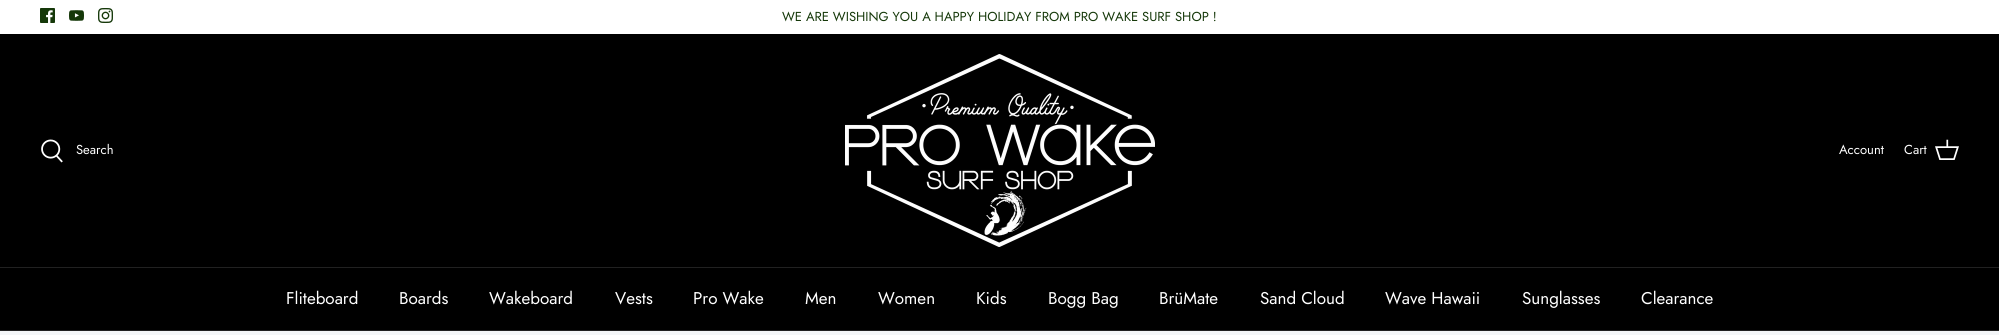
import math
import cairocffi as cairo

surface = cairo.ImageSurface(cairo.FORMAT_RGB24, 1999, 335)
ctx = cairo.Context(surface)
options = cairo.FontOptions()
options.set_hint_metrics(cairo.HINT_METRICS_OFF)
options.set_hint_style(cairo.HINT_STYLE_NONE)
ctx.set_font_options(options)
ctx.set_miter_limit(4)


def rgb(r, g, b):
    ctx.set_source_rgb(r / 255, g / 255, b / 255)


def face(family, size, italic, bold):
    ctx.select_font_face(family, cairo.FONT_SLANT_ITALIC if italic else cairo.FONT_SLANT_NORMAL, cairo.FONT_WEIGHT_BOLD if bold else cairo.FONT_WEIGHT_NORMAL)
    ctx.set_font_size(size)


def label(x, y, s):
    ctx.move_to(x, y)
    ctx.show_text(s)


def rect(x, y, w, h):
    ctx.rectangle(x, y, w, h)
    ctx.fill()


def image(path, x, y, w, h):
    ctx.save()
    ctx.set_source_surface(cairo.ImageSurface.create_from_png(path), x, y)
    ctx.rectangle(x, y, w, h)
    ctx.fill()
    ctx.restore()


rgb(255, 255, 255)
ctx.paint()
image('image0.png', 40, 8, 15, 15)
image('image1.png', 69, 10, 15, 11)
image('image2.png', 98, 8, 15, 15)
face('Jost', 13, 0, 0)
rgb(21, 56, 9)
label(782, 21, 'WE ARE WISHING YOU A HAPPY HOLIDAY FROM PRO WAKE SURF SHOP !')
rgb(0, 0, 0)
rect(0, 34, 1999, 233)
rgb(33, 33, 33)
rect(0, 267, 1999, 1)
image('image3.png', 41, 139, 22, 24)
rgb(255, 255, 255)
label(76, 154, 'Search')
image('image4.png', 845, 54, 310, 193)
label(1839, 154, 'Account')
label(1904, 154, 'Cart')
image('image5.png', 1935, 139, 24, 21)
rgb(33, 33, 33)
rect(0, 330, 1999, 1)
rgb(0, 0, 0)
rect(0, 268, 1999, 62)
face('Jost', 17, 0, 0)
rgb(255, 255, 255)
label(286, 304, 'Fliteboard')
label(399, 304, 'Boards')
label(489, 304, 'Wakeboard')
label(615, 304, 'Vests')
label(693, 304, 'Pro Wake')
label(805, 304, 'Men')
label(878, 304, 'Women')
label(976, 304, 'Kids')
label(1048, 304, 'Bogg Bag')
label(1159, 304, 'BrüMate')
label(1260, 304, 'Sand Cloud')
label(1385, 304, 'Wave Hawaii')
label(1522, 304, 'Sunglasses')
label(1641, 304, 'Clearance')
rgb(244, 246, 248)
rect(0, 331, 1999, 4)
surface.write_to_png('render.png')
